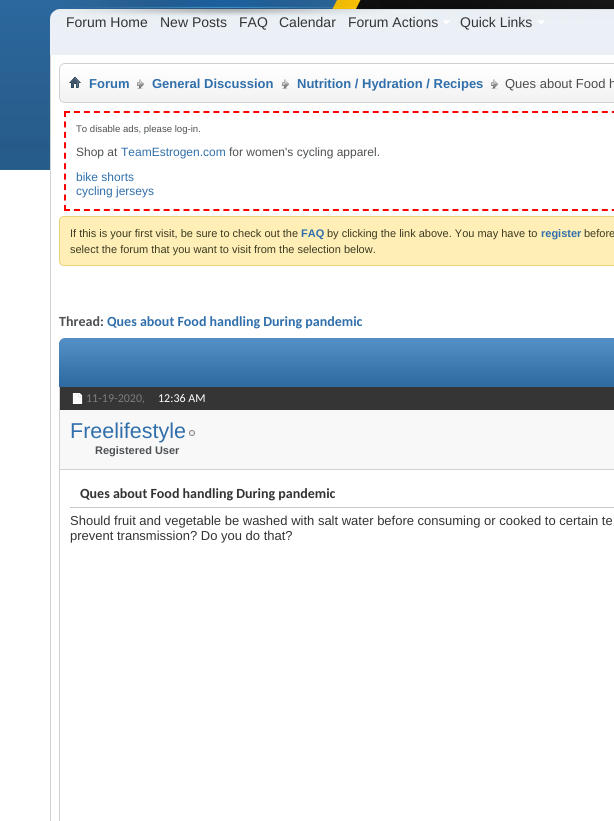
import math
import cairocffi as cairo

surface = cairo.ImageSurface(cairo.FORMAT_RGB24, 614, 821)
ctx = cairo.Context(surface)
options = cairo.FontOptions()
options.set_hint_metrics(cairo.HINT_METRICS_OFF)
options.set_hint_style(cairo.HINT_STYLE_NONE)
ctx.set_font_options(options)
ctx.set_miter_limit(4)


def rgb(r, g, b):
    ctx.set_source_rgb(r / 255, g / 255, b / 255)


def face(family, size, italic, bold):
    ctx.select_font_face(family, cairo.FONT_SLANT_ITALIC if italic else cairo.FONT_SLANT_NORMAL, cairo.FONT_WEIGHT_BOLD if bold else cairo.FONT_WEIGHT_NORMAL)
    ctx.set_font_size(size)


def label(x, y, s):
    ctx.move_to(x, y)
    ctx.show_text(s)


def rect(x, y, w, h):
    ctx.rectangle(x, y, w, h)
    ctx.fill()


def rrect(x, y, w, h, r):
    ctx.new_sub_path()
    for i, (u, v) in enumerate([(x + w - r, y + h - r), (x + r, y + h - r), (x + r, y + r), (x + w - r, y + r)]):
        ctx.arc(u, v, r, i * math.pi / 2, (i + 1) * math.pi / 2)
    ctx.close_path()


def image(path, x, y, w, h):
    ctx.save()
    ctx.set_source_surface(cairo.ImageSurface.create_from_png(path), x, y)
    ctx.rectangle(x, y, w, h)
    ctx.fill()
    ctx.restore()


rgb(255, 255, 255)
ctx.paint()
image('image0.png', 0, 0, 50, 170)
rgb(234, 240, 245)
rect(50, 19, 564, 36)
image('image1.png', 50, 0, 564, 19)
face('Liberation Sans', 14, 0, 0)
rgb(51, 51, 51)
label(66, 27, 'Forum Home')
label(160, 27, 'New Posts')
label(239, 27, 'FAQ')
label(279, 27, 'Calendar')
label(348, 27, 'Forum Actions')
image('image2.png', 442, 20, 8, 5)
label(460, 27, 'Quick Links')
image('image2.png', 537, 20, 8, 5)
rgb(209, 209, 209)
rect(50, 55, 1, 766)
image('image3.png', 64, 63, 550, 40)
image('image4.png', 59, 63, 5, 40)
image('image5.png', 69, 77, 12, 11)
image('image6.png', 137, 79, 7, 10)
face('Liberation Sans', 13, 0, 1)
rgb(48, 111, 171)
label(89, 88, 'Forum')
image('image6.png', 282, 79, 7, 10)
label(152, 88, 'General Discussion')
image('image6.png', 491, 79, 7, 10)
label(297, 88, 'Nutrition / Hydration / Recipes')
face('Liberation Sans', 13, 0, 0)
rgb(76, 76, 76)
label(505, 88, 'Ques about Food h')
ctx.new_path()
ctx.move_to(64, 112)
ctx.line_to(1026, 112)
rgb(255, 0, 0)
ctx.set_dash([6, 3.96])
ctx.stroke()
ctx.new_path()
ctx.move_to(64, 210)
ctx.line_to(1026, 210)
ctx.stroke()
ctx.new_path()
ctx.move_to(65, 111)
ctx.line_to(65, 211)
ctx.set_dash([6, 4.44])
ctx.stroke()
face('Liberation Sans', 9.6, 0, 0)
rgb(77, 81, 83)
label(76, 132, 'To disable ads, please log-in.')
face('Liberation Sans', 12, 0, 0)
label(76, 156, 'Shop at')
rgb(48, 111, 171)
label(121, 156, 'TeamEstrogen.com')
rgb(77, 81, 83)
label(229, 156, 'for women\'s cycling apparel.')
rgb(48, 111, 171)
label(76, 181, 'bike shorts')
label(76, 195, 'cycling jerseys')
rgb(255, 239, 182)
rrect(59.5, 216.5, 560, 49, 4.5)
ctx.fill_preserve()
rgb(235, 210, 123)
ctx.set_line_width(1)
ctx.set_dash([])
ctx.stroke()
face('Liberation Sans', 11, 0, 0)
rgb(60, 58, 34)
label(70, 237, 'If this is your first visit, be sure to check out the')
face('Liberation Sans', 11, 0, 1)
rgb(48, 111, 171)
label(301, 237, 'FAQ')
face('Liberation Sans', 11, 0, 0)
rgb(60, 58, 34)
label(327, 237, 'by clicking the link above. You may have to')
face('Liberation Sans', 11, 0, 1)
rgb(48, 111, 171)
label(541, 237, 'register')
face('Liberation Sans', 11, 0, 0)
rgb(60, 58, 34)
label(584, 237, 'before')
label(70, 253, 'select the forum that you want to visit from the selection below.')
face('Carlito', 14, 0, 1)
rgb(77, 81, 83)
label(59, 326, 'Thread:')
rgb(48, 111, 171)
label(107, 326, 'Ques about Food handling During pandemic')
image('image7.png', 59, 338, 555, 49)
image('image8.png', 59, 338, 5, 5)
ctx.rectangle(59.5, 387.5, 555, 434)
rgb(209, 209, 209)
ctx.stroke()
rgb(53, 53, 53)
rect(60, 387, 554, 23)
image('image9.png', 72, 392, 11, 13)
face('Carlito', 12, 0, 0)
rgb(124, 124, 124)
label(86, 402, '11-19-2020,')
rgb(255, 255, 255)
label(158, 402, '12:36 AM')
rgb(248, 248, 248)
rect(60, 410, 554, 59)
rgb(209, 209, 209)
rect(60, 469, 554, 1)
face('Liberation Sans', 21.5, 0, 0)
rgb(48, 111, 171)
label(70, 438, 'Freelifestyle')
image('image10.png', 189, 430, 6, 6)
face('Liberation Sans', 11, 0, 1)
rgb(77, 81, 83)
label(95, 454, 'Registered User')
rgb(200, 200, 200)
rect(70, 507, 544, 1)
face('Carlito', 14, 0, 1)
rgb(51, 51, 51)
label(80, 498, 'Ques about Food handling During pandemic')
face('Liberation Sans', 13, 0, 0)
label(70, 525, 'Should fruit and vegetable be washed with salt water before consuming or cooked to certain te')
label(70, 540, 'prevent transmission? Do you do that?')
surface.write_to_png('render.png')
